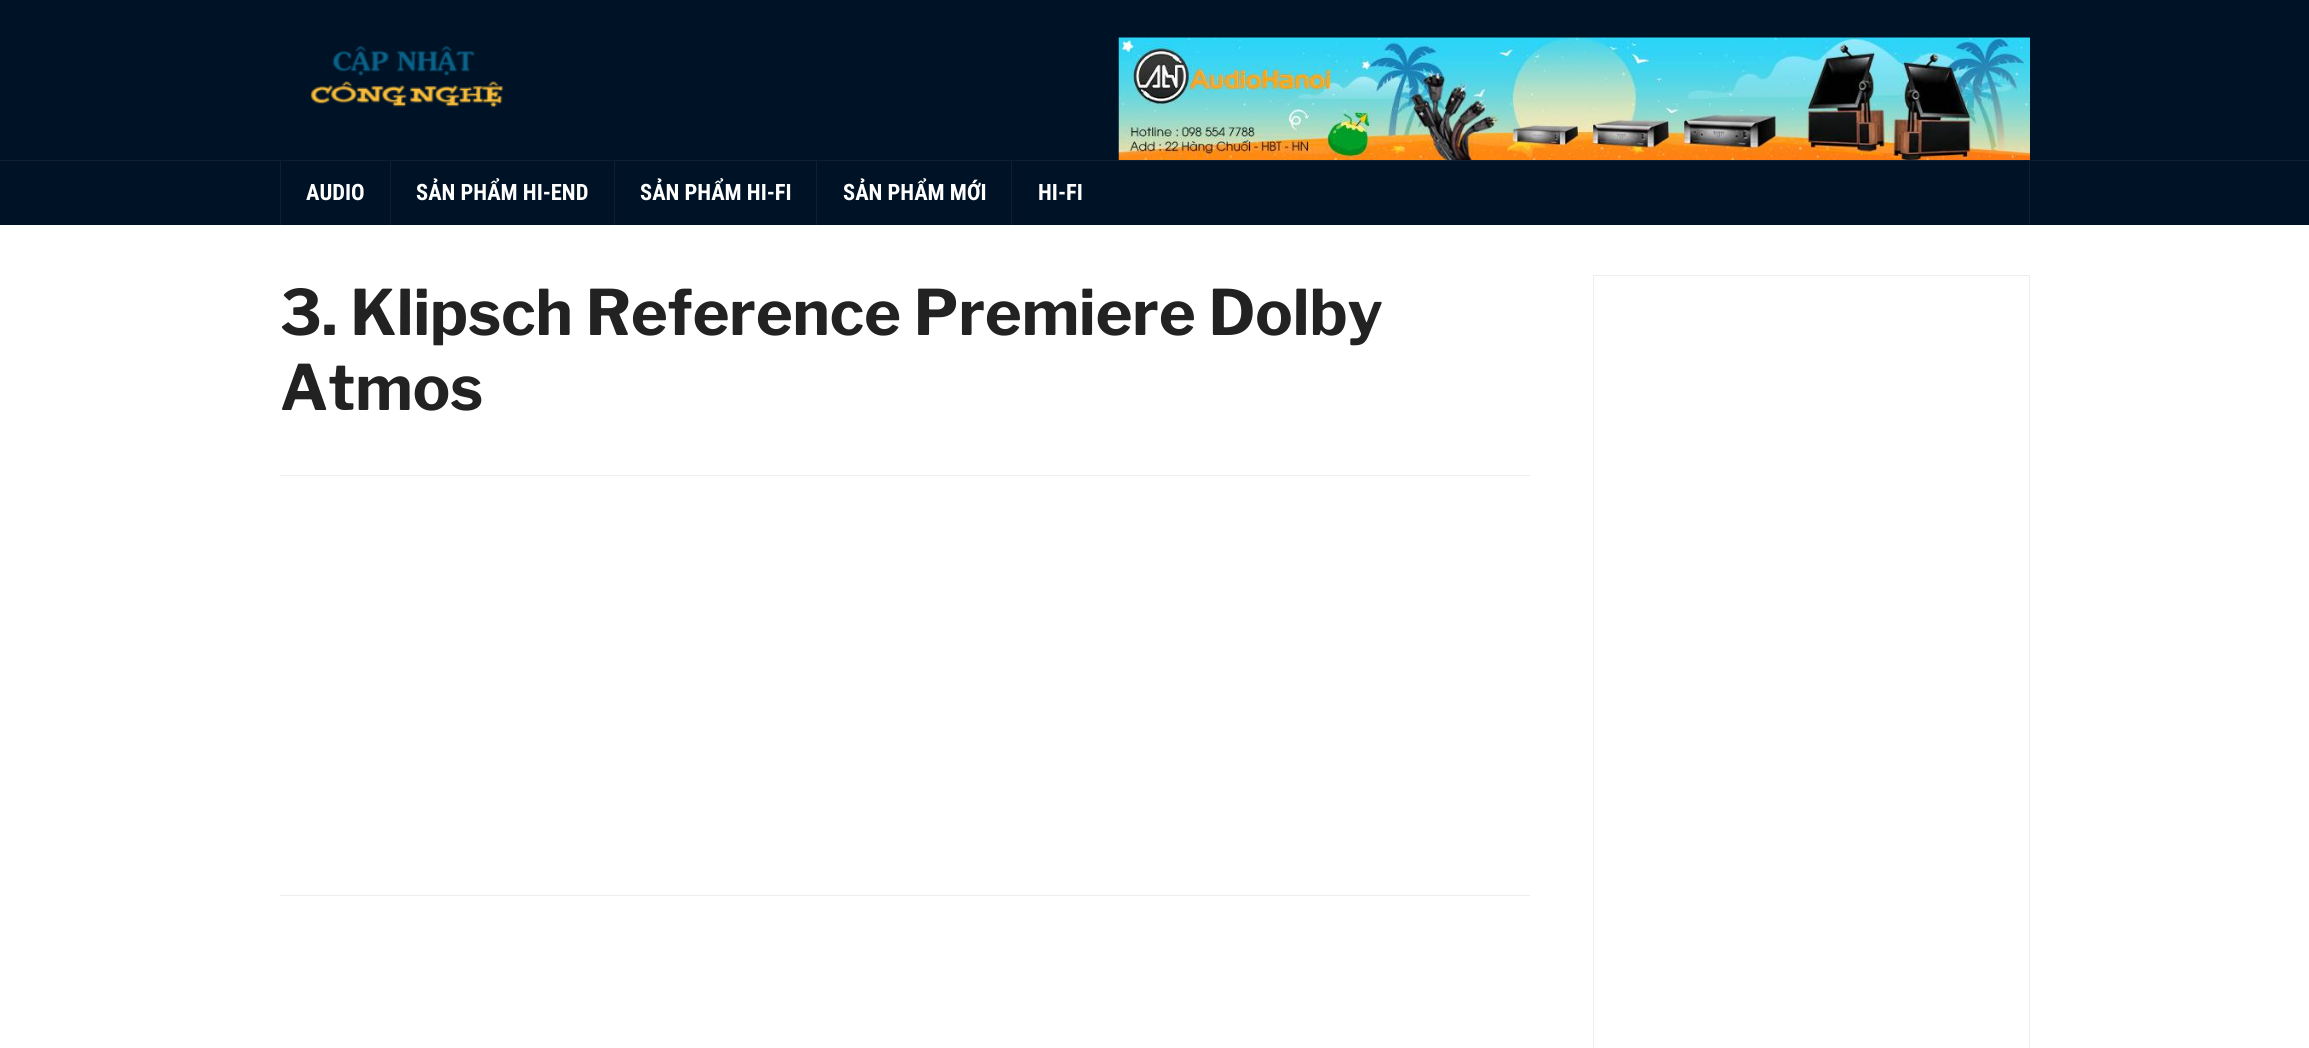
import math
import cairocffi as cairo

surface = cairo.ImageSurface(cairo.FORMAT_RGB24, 2309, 1048)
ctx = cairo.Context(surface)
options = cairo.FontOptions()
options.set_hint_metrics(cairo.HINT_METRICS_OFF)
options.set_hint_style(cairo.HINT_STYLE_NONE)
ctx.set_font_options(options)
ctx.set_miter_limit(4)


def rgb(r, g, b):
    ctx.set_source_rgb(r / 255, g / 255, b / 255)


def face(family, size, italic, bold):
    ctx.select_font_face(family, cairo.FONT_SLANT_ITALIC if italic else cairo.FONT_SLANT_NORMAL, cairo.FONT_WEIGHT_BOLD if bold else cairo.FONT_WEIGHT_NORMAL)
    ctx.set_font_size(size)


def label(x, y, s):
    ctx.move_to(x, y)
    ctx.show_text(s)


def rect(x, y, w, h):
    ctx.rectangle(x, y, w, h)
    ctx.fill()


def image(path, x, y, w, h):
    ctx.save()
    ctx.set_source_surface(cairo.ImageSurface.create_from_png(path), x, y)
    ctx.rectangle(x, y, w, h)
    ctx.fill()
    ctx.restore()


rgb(255, 255, 255)
ctx.paint()
rgb(0, 19, 38)
rect(0, 0, 2309, 225)
image('image0.png', 310, 46, 194, 62)
image('image1.png', 1118, 37, 912, 123)
rgb(13, 31, 49)
rect(0, 160, 2309, 1)
rect(2029, 161, 1, 64)
rect(280, 161, 1, 64)
face('Roboto Condensed', 22.5, 0, 1)
rgb(255, 255, 255)
label(306, 200, 'AUDIO')
rgb(13, 31, 49)
rect(390, 161, 1, 64)
rgb(255, 255, 255)
label(416, 200, 'SẢN PHẨM HI-END')
rgb(13, 31, 49)
rect(614, 161, 1, 64)
rgb(255, 255, 255)
label(640, 200, 'SẢN PHẨM HI-FI')
rgb(13, 31, 49)
rect(816, 161, 1, 64)
rgb(255, 255, 255)
label(843, 200, 'SẢN PHẨM MỚI')
rgb(13, 31, 49)
rect(1011, 161, 1, 64)
rgb(255, 255, 255)
label(1038, 200, 'HI-FI')
face('Libre Franklin', 62.5, 0, 1)
rgb(34, 34, 34)
label(280, 335, '3. Klipsch Reference Premiere Dolby')
label(280, 410, 'Atmos')
rgb(238, 238, 238)
rect(280, 475, 1250, 1)
rect(280, 895, 1250, 1)
ctx.rectangle(1593.5, 275.5, 436, 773)
ctx.set_line_width(1)
ctx.stroke()
surface.write_to_png('render.png')
